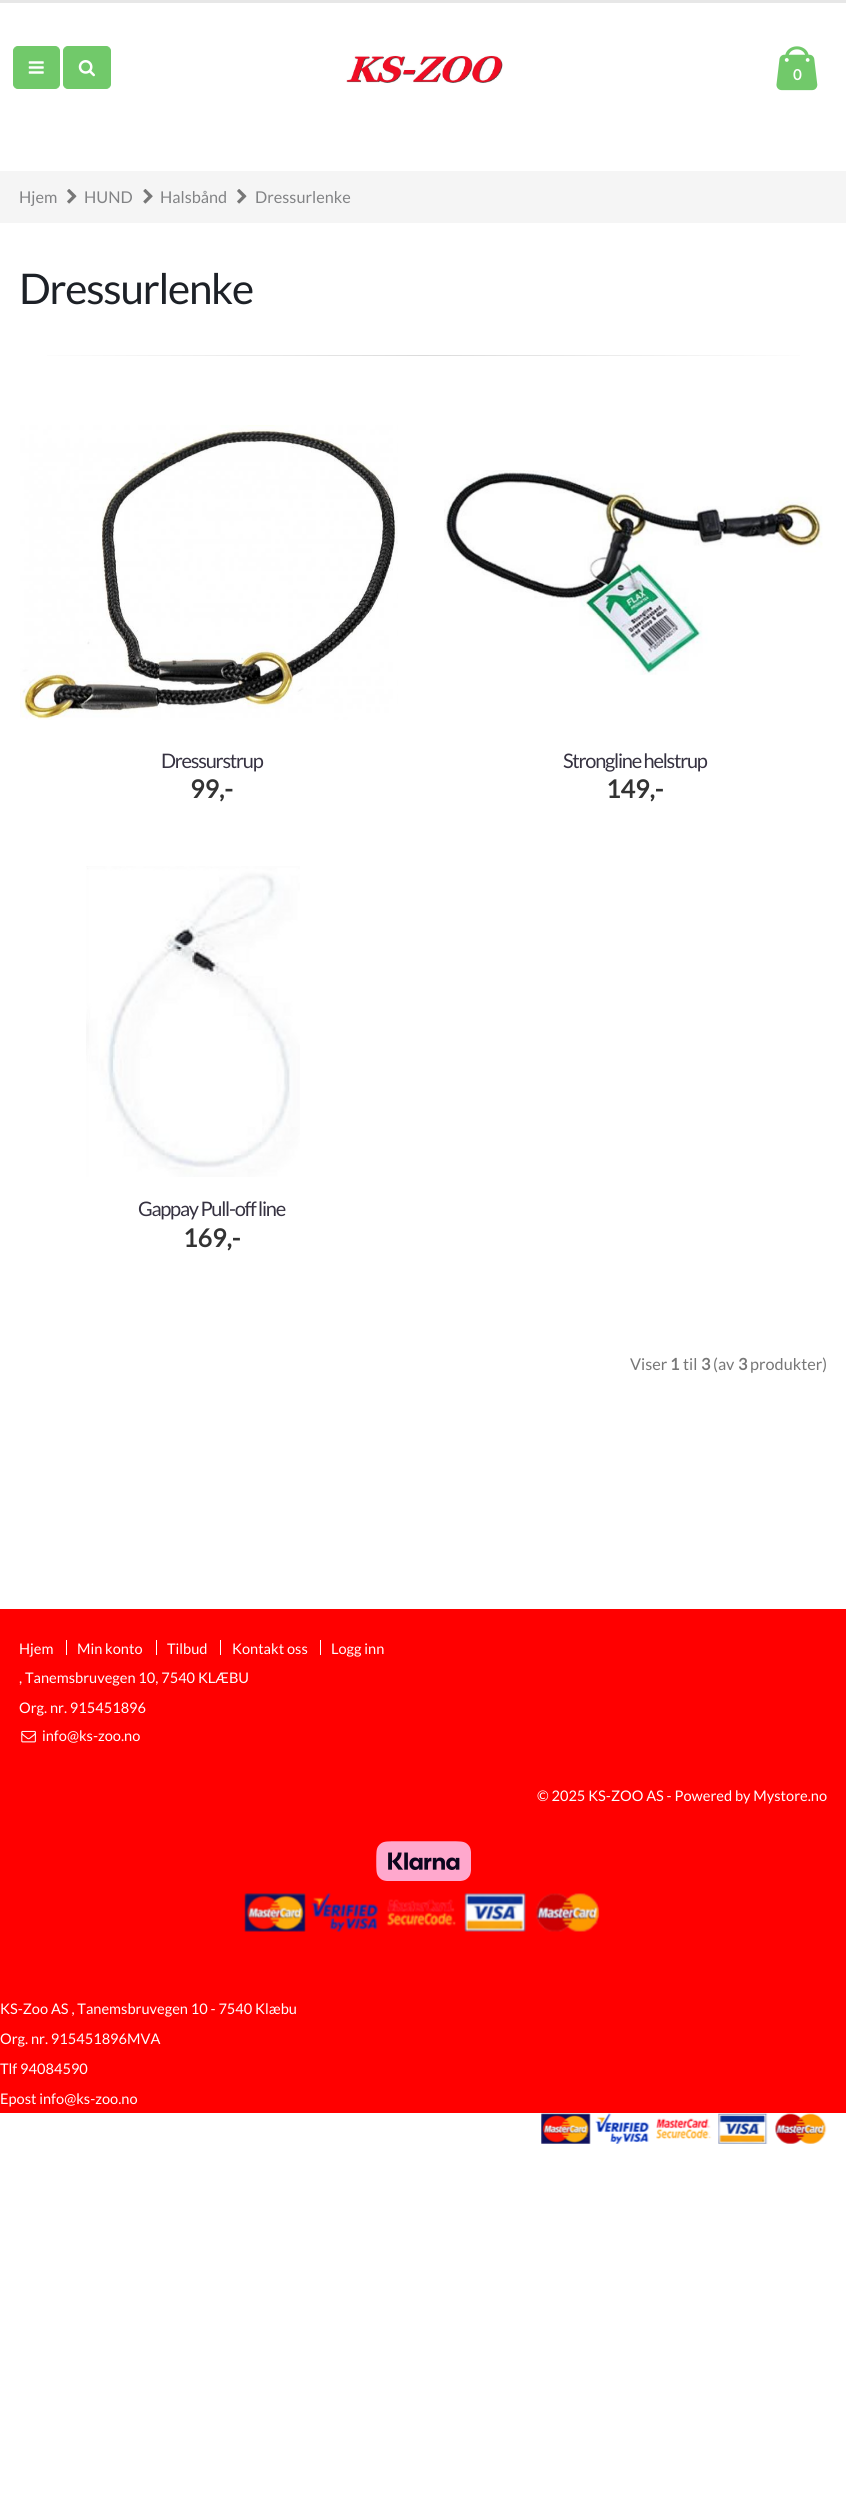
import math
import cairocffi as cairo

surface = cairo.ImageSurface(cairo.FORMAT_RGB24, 846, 2498)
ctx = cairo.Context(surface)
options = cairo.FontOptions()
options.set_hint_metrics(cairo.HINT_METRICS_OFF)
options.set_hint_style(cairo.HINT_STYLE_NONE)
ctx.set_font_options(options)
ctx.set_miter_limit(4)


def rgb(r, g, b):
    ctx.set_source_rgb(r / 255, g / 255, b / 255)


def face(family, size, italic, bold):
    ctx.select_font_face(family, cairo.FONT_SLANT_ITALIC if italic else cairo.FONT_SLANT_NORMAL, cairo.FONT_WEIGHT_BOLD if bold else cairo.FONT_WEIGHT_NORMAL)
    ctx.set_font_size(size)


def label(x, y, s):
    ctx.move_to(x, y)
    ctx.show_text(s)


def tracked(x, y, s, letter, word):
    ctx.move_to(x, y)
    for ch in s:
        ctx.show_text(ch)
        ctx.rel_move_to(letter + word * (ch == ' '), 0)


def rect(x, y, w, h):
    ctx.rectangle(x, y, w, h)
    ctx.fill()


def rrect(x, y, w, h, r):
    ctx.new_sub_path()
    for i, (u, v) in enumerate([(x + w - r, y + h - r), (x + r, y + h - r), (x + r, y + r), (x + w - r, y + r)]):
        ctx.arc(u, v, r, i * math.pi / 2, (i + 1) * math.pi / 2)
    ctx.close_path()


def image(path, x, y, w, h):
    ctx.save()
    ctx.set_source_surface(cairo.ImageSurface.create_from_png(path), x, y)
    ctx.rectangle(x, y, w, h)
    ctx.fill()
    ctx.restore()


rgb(255, 255, 255)
ctx.paint()
rgb(231, 231, 231)
rect(0, 0, 846, 3)
rgb(113, 201, 106)
rrect(13.5, 46.5, 46, 42, 4.5)
ctx.fill_preserve()
ctx.set_line_width(1)
ctx.stroke()
image('image0.png', 28, 61, 16, 13)
rrect(63.5, 46.5, 47, 42, 4.5)
ctx.fill_preserve()
ctx.stroke()
image('image1.png', 78, 60, 17, 17)
image('image2.png', 346, 55, 157, 28)
image('image3.png', 776, 46, 42, 45)
face('Lato', 14.6, 0, 1)
rgb(255, 255, 255)
label(793, 80, '0')
rgb(245, 245, 245)
rect(0, 171, 846, 52)
face('Lato', 16.25, 0, 0)
rgb(130, 131, 133)
label(19, 203, 'Hjem')
image('image4.png', 67, 189, 10, 15)
label(84, 203, 'HUND')
image('image5.png', 143, 189, 10, 15)
label(160, 203, 'Halsbånd')
image('image4.png', 237, 189, 10, 15)
label(255, 203, 'Dressurlenke')
face('Lato', 42.25, 0, 0)
rgb(29, 33, 39)
tracked(19, 304, 'Dressurlenke', -1.25, 0)
gradient = cairo.LinearGradient(19, 356, 828, 356)
gradient.add_color_stop_rgba(0, 1, 1, 1, 1)
gradient.add_color_stop_rgba(0.5, 0.859, 0.859, 0.859, 1)
gradient.add_color_stop_rgba(1, 1, 1, 1, 1)
ctx.set_source(gradient)
rect(47, 355, 753, 1)
image('image6.png', 20, 425, 378, 295)
face('Lato', 20, 0, 0)
rgb(54, 50, 65)
tracked(161, 768, 'Dressurstrup', -1.25, 0)
face('Lato', 25, 0, 1)
rgb(51, 51, 51)
label(190, 798, '99,-')
image('image7.png', 444, 470, 379, 205)
face('Lato', 20, 0, 0)
rgb(54, 50, 65)
tracked(563, 768, 'Strongline helstrup', -1.25, 0)
face('Lato', 25, 0, 1)
rgb(51, 51, 51)
label(606, 798, '149,-')
image('image8.png', 86, 866, 214, 311)
face('Lato', 20, 0, 0)
rgb(54, 50, 65)
tracked(138, 1216, 'Gappay Pull-off line', -1.25, 0)
face('Lato', 25, 0, 1)
rgb(51, 51, 51)
label(183, 1247, '169,-')
face('Lato', 16.25, 0, 0)
rgb(119, 119, 119)
label(630, 1370, 'Viser')
face('Lato', 16.25, 0, 1)
label(670, 1370, '1')
face('Lato', 16.25, 0, 0)
label(683, 1370, 'til')
face('Lato', 16.25, 0, 1)
label(701, 1370, '3')
face('Lato', 16.25, 0, 0)
label(713, 1370, '(av')
face('Lato', 16.25, 0, 1)
label(738, 1370, '3')
face('Lato', 16.25, 0, 0)
label(750, 1370, 'produkter)')
rgb(255, 0, 0)
rect(0, 1609, 846, 504)
face('Lato', 14.6, 0, 0)
rgb(255, 255, 255)
label(19, 1654, 'Hjem')
rect(66, 1640, 1, 15)
label(77, 1654, 'Min konto')
rect(156, 1640, 1, 15)
label(167, 1654, 'Tilbud')
rect(220, 1640, 1, 15)
label(232, 1654, 'Kontakt oss')
rect(320, 1640, 1, 15)
label(331, 1654, 'Logg inn')
label(19, 1683, ', Tanemsbruvegen 10, 7540 KLÆBU')
label(19, 1713, 'Org. nr. 915451896')
image('image9.png', 21, 1730, 15, 13)
label(42, 1741, 'info@ks-zoo.no')
label(537, 1801, '© 2025 KS-ZOO AS - Powered by Mystore.no')
image('image10.png', 376, 1841, 95, 40)
image('image11.png', 244, 1893, 62, 39)
image('image12.png', 311, 1893, 289, 39)
label(0, 2014, 'KS-Zoo AS , Tanemsbruvegen 10 - 7540 Klæbu')
label(0, 2044, 'Org. nr. 915451896MVA')
label(0, 2074, 'Tlf 94084590')
label(0, 2104, 'Epost info@ks-zoo.no')
image('image13.png', 541, 2113, 50, 31)
image('image14.png', 595, 2113, 232, 31)
surface.write_to_png('render.png')
